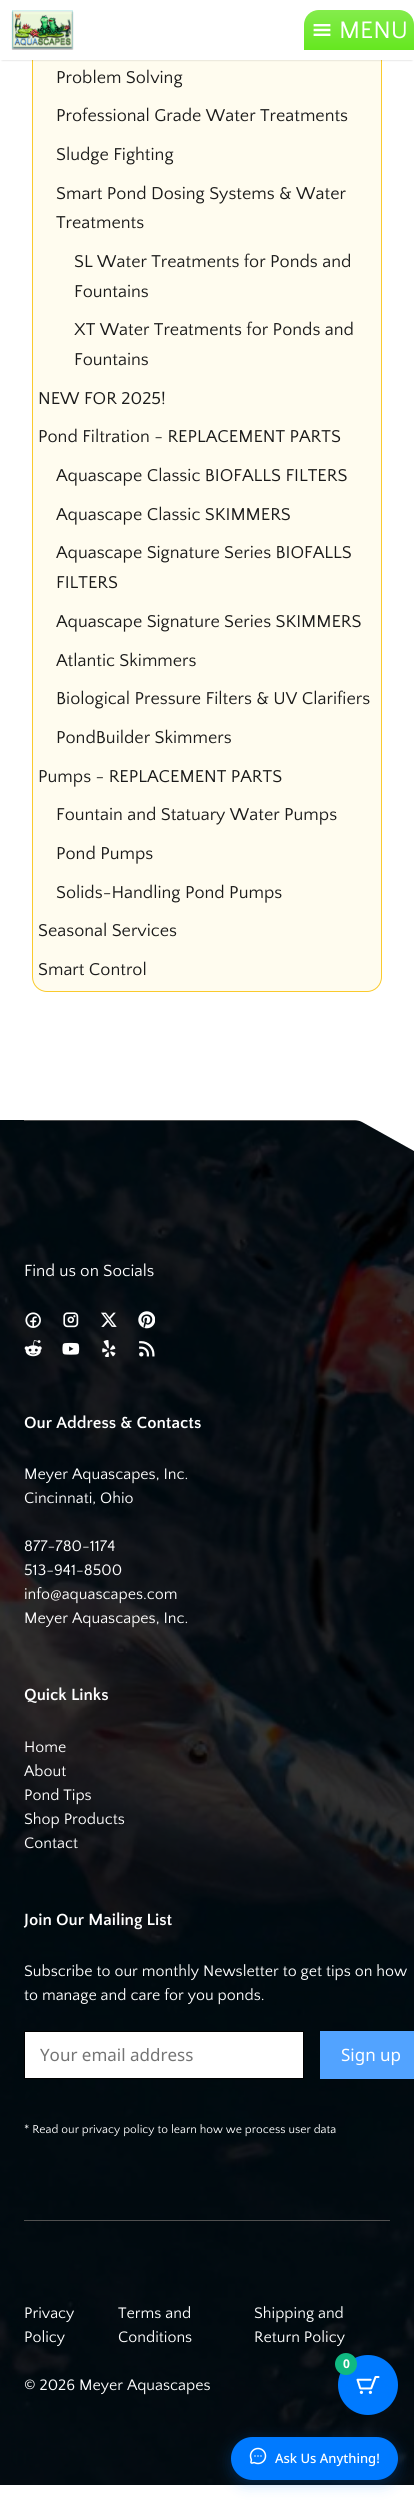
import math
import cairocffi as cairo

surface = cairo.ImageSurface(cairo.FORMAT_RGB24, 414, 2510)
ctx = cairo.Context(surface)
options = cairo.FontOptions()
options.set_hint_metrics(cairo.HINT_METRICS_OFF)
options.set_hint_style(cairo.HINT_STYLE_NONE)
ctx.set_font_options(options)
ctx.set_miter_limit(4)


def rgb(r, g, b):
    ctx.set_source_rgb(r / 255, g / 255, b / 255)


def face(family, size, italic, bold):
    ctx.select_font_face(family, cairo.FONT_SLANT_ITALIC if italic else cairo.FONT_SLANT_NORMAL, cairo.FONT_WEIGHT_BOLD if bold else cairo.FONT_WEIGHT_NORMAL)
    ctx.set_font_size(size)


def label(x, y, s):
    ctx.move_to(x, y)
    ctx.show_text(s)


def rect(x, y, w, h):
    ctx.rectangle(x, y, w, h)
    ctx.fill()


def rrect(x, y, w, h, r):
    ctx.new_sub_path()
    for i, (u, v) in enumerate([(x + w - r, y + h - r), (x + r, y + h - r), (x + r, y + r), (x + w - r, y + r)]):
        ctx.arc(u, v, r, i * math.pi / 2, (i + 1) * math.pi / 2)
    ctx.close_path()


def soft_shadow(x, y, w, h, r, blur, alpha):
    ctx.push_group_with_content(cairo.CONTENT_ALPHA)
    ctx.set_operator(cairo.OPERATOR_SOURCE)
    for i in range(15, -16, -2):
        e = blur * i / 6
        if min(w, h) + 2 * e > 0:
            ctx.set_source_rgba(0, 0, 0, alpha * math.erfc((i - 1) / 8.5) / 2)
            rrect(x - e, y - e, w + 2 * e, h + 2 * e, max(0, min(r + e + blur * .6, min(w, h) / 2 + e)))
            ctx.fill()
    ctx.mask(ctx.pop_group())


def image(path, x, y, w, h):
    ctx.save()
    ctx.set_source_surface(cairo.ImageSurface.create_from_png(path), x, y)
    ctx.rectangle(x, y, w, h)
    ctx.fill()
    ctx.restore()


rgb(255, 255, 255)
ctx.paint()
rgb(255, 252, 239)
rrect(32.5, -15.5, 349, 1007, 14.5)
ctx.fill_preserve()
rgb(250, 202, 45)
ctx.set_line_width(1)
ctx.stroke()
rgb(0, 0, 0)
soft_shadow(2, 4, 410, 56, 0, 1, 0.2)
rgb(255, 255, 255)
rect(0, 0, 414, 60)
image('image0.png', 11, 10, 63, 40)
gradient = cairo.LinearGradient(359, 10, 359, 50)
gradient.add_color_stop_rgba(0, 0.518, 0.925, 0.298, 1)
gradient.add_color_stop_rgba(1, 0.396, 0.906, 0.122, 1)
ctx.set_source(gradient)
ctx.new_path()
ctx.move_to(319, 10)
ctx.line_to(399, 10)
ctx.curve_to(407.5, 10, 414, 16.5, 414, 25)
ctx.line_to(414, 50)
ctx.line_to(304, 50)
ctx.line_to(304, 25)
ctx.curve_to(304, 16.5, 310.5, 10, 319, 10)
ctx.close_path()
ctx.fill()
image('image1.png', 313, 24, 18, 12)
face('Quattrocento Sans', 25, 0, 0)
rgb(255, 255, 255)
label(339, 38, 'MENU')
face('Quattrocento Sans', 18, 0, 0)
rgb(26, 26, 26)
label(56, 83, 'Problem Solving')
label(56, 121, 'Professional Grade Water Treatments')
label(56, 160, 'Sludge Fighting')
label(56, 199, 'Smart Pond Dosing Systems & Water')
label(56, 228, 'Treatments')
label(74, 267, 'SL Water Treatments for Ponds and')
label(74, 297, 'Fountains')
label(74, 335, 'XT Water Treatments for Ponds and')
label(74, 365, 'Fountains')
label(38, 404, 'NEW FOR 2025!')
label(38, 442, 'Pond Filtration - REPLACEMENT PARTS')
label(56, 481, 'Aquascape Classic BIOFALLS FILTERS')
label(56, 520, 'Aquascape Classic SKIMMERS')
label(56, 558, 'Aquascape Signature Series BIOFALLS')
label(56, 588, 'FILTERS')
label(56, 627, 'Aquascape Signature Series SKIMMERS')
label(56, 666, 'Atlantic Skimmers')
label(56, 704, 'Biological Pressure Filters & UV Clarifiers')
label(56, 743, 'PondBuilder Skimmers')
label(38, 782, 'Pumps - REPLACEMENT PARTS')
label(56, 820, 'Fountain and Statuary Water Pumps')
label(56, 859, 'Pond Pumps')
label(56, 898, 'Solids-Handling Pond Pumps')
label(38, 936, 'Seasonal Services')
label(38, 975, 'Smart Control')
image('image2.png', 0, 1120, 414, 1365)
rgb(80, 80, 80)
rect(24, 1120, 336, 1)
ctx.save()
ctx.rectangle(0, 1120, 414, 32)
ctx.clip()
rgb(255, 255, 255)
ctx.new_path()
ctx.move_to(414, 1119)
ctx.line_to(0, 1119)
ctx.line_to(0, 1120)
ctx.line_to(355, 1120)
ctx.curve_to(357, 1120, 360, 1121, 362, 1122)
ctx.line_to(414, 1151)
ctx.close_path()
ctx.fill()
ctx.restore()
rect(24, 2220, 366, 1)
face('Quattrocento Sans', 17, 0, 0)
rgb(255, 255, 255)
label(24, 1276, 'Find us on Socials')
image('image3.png', 25, 1312, 16, 16)
image('image4.png', 63, 1312, 16, 16)
image('image5.png', 101, 1312, 16, 15)
image('image6.png', 138, 1311, 17, 18)
image('image7.png', 24, 1340, 18, 17)
image('image8.png', 62, 1342, 18, 13)
image('image9.png', 102, 1340, 14, 17)
image('image10.png', 139, 1341, 16, 16)
face('Quattrocento Sans', 17, 0, 1)
label(24, 1428, 'Our Address & Contacts')
face('Quattrocento Sans', 16, 0, 0)
label(24, 1479, 'Meyer Aquascapes, Inc.')
label(24, 1503, 'Cincinnati, Ohio')
label(24, 1551, '877-780-1174')
label(24, 1575, '513-941-8500')
label(24, 1599, 'info@aquascapes.com')
label(24, 1623, 'Meyer Aquascapes, Inc.')
face('Quattrocento Sans', 17, 0, 1)
label(24, 1700, 'Quick Links')
face('Quattrocento Sans', 16, 0, 0)
label(24, 1752, 'Home')
label(24, 1776, 'About')
label(24, 1800, 'Pond Tips')
label(24, 1824, 'Shop Products')
label(24, 1848, 'Contact')
face('Quattrocento Sans', 17, 0, 1)
label(24, 1925, 'Join Our Mailing List')
face('Quattrocento Sans', 16, 0, 0)
label(24, 1976, 'Subscribe to our monthly Newsletter to get tips on how')
label(24, 2000, 'to manage and care for you ponds.')
ctx.rectangle(24.5, 2031.5, 279, 47)
ctx.fill_preserve()
rgb(0, 0, 0)
ctx.stroke()
face('Noto Sans', 17, 0, 0)
rgb(117, 117, 117)
label(40, 2061, 'Your email address')
rgb(82, 163, 255)
rect(320, 2031, 94, 48)
rgb(255, 255, 255)
label(341, 2061, 'Sign up')
face('Quattrocento Sans', 12, 0, 0)
label(24, 2133, '* Read our privacy policy to learn how we process user data')
face('Quattrocento Sans', 16, 0, 0)
label(24, 2318, 'Privacy')
label(24, 2342, 'Policy')
label(118, 2318, 'Terms and')
label(118, 2342, 'Conditions')
label(254, 2318, 'Shipping and')
label(254, 2342, 'Return Policy')
label(24, 2390, '© 2026 Meyer Aquascapes')
rgb(0, 122, 255)
ctx.new_path()
ctx.arc(368, 2385, 30, 0, 2 * math.pi)
ctx.fill()
rgb(16, 185, 129)
ctx.arc(346, 2364, 11, 0, 2 * math.pi)
ctx.fill()
face('Noto Sans', 12, 0, 1)
rgb(255, 255, 255)
label(343, 2368, '0')
image('image11.png', 356, 2376, 24, 18)
rgb(0, 122, 255)
soft_shadow(231, 2441, 167, 43, 21.5, 7.5, 0.25)
rgb(0, 122, 255)
rrect(231, 2437, 167, 43, 21.5)
ctx.fill()
image('image12.png', 249, 2447, 18, 18)
face('Noto Sans Medium', 13, 0, 0)
rgb(255, 255, 255)
label(275, 2463, 'Ask Us Anything!')
surface.write_to_png('render.png')
